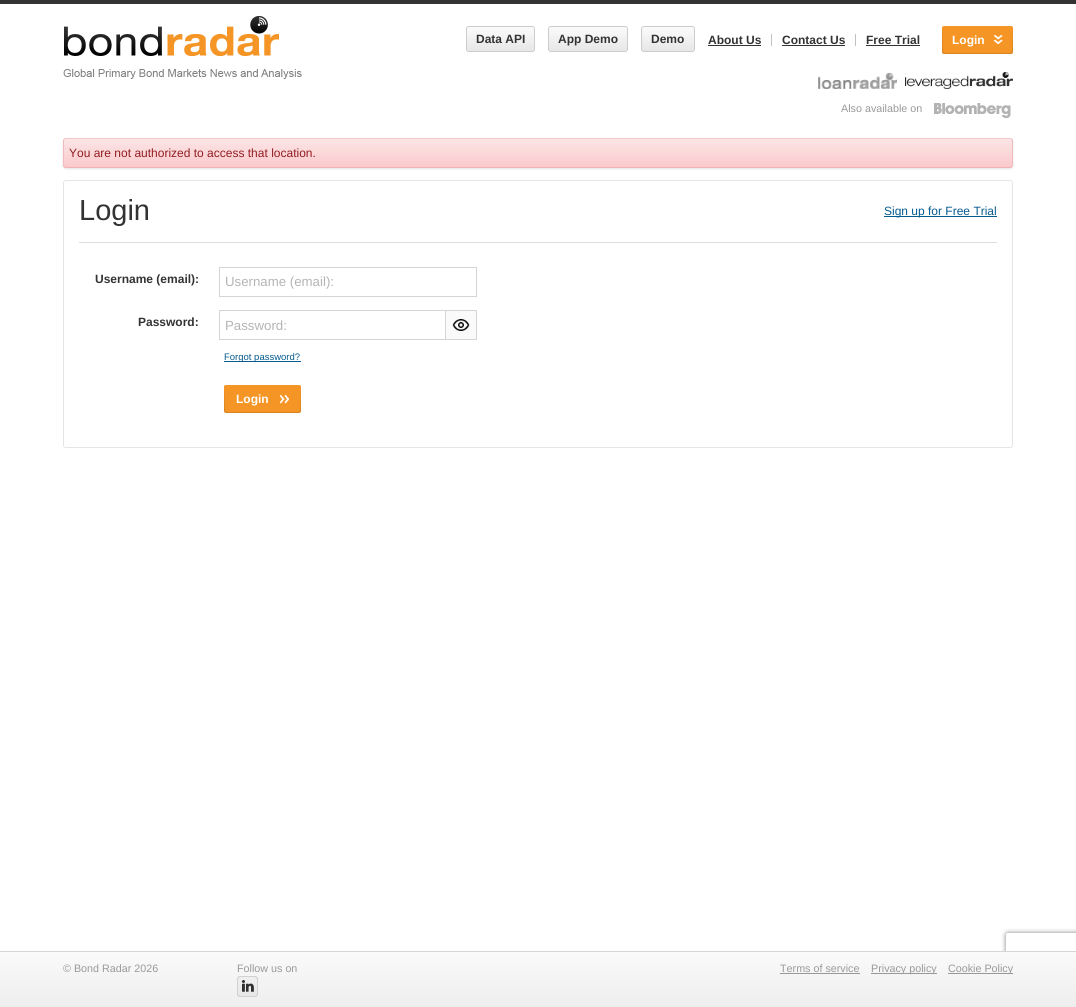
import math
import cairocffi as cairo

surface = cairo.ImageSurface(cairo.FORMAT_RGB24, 1076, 1007)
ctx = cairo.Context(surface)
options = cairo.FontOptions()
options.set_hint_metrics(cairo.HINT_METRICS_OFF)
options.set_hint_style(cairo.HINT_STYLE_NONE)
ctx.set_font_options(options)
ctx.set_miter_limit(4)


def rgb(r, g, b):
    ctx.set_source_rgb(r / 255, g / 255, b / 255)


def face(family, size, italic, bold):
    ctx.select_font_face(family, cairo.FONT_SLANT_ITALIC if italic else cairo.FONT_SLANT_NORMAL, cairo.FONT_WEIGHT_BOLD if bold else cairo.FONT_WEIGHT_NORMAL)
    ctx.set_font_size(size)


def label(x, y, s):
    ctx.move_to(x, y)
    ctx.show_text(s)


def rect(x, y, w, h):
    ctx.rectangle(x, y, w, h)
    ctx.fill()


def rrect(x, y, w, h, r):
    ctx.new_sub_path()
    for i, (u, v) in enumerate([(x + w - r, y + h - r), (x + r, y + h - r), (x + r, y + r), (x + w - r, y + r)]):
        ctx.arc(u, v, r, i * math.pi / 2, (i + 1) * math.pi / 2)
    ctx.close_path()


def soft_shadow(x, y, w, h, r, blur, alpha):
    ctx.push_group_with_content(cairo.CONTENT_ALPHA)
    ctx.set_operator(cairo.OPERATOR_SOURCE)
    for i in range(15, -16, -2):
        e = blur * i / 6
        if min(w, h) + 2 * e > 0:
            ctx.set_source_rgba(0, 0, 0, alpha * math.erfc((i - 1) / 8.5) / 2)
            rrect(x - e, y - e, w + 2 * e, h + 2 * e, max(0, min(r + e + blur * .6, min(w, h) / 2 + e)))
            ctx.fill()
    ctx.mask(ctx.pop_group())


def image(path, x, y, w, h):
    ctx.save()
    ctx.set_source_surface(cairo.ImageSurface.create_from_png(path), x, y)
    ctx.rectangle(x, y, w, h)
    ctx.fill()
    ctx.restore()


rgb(255, 255, 255)
ctx.paint()
rgb(51, 51, 51)
rect(0, 0, 1076, 4)
image('image0.png', 63, 16, 239, 63)
image('image1.png', 466, 26, 67, 26)
image('image2.png', 533, 26, 2, 26)
face('Liberation Sans', 12, 0, 1)
label(476, 43, 'Data API')
image('image3.png', 548, 26, 78, 26)
image('image4.png', 626, 26, 2, 26)
label(558, 43, 'App Demo')
image('image5.png', 641, 26, 52, 26)
image('image4.png', 693, 26, 2, 26)
label(651, 43, 'Demo')
label(708, 44, 'About Us')
rect(708, 45, 53, 1)
rgb(193, 193, 193)
rect(771, 34, 1, 12)
rgb(51, 51, 51)
label(782, 44, 'Contact Us')
rect(782, 45, 63, 1)
rgb(193, 193, 193)
rect(855, 34, 1, 12)
rgb(51, 51, 51)
label(866, 44, 'Free Trial')
rect(866, 45, 54, 1)
image('image6.png', 942, 26, 51, 28)
image('image7.png', 993, 26, 20, 28)
rgb(255, 255, 255)
label(952, 44, 'Login')
image('image8.png', 818, 72, 79, 17)
image('image9.png', 905, 72, 108, 17)
face('Liberation Sans', 10.75, 0, 0)
rgb(153, 153, 153)
label(841, 112, 'Also available on')
image('image10.png', 934, 103, 77, 16)
rgb(228, 228, 228)
soft_shadow(63, 139, 950, 30, 3, 1, 1)
image('image11.png', 63, 139, 950, 28)
ctx.new_path()
ctx.move_to(64, 139)
ctx.line_to(66, 138.5)
ctx.line_to(1010, 138.5)
ctx.line_to(1012, 139)
rgb(241, 199, 201)
ctx.set_line_width(1)
ctx.stroke()
ctx.new_path()
ctx.move_to(1012, 139)
ctx.curve_to(1012, 139.5, 1012.5, 140.5, 1012.5, 141)
ctx.line_to(1012.5, 165)
ctx.curve_to(1012.5, 165.5, 1012, 166.5, 1012, 167)
rgb(241, 188, 190)
ctx.stroke()
ctx.new_path()
ctx.move_to(1012, 167)
ctx.line_to(1010, 167.5)
ctx.line_to(66, 167.5)
ctx.line_to(64, 167)
rgb(241, 178, 181)
ctx.stroke()
ctx.new_path()
ctx.move_to(64, 167)
ctx.curve_to(64, 166.5, 63.5, 165.5, 63.5, 165)
ctx.line_to(63.5, 141)
ctx.curve_to(63.5, 140.5, 64, 139.5, 64, 139)
rgb(241, 188, 190)
ctx.stroke()
face('Liberation Sans', 12, 0, 0)
rgb(145, 29, 34)
label(69, 157, 'You are not authorized to access that location.')
rrect(63.5, 180.5, 949, 267, 2.5)
rgb(229, 229, 229)
ctx.stroke()
face('Liberation Sans', 29, 0, 0)
rgb(51, 51, 51)
label(79, 220, 'Login')
rgb(6, 91, 143)
rect(884, 216, 113, 1)
face('Liberation Sans', 12, 0, 0)
label(884, 215, 'Sign up for Free Trial')
rgb(221, 221, 221)
rect(79, 242, 918, 1)
face('Liberation Sans', 12, 0, 1)
rgb(51, 51, 51)
label(95, 283, 'Username (email):')
ctx.rectangle(219.5, 267.5, 257, 29)
rgb(213, 213, 213)
ctx.stroke()
face('Liberation Sans', 13.25, 0, 0)
rgb(180, 180, 180)
label(225, 286, 'Username (email):')
face('Liberation Sans', 12, 0, 1)
rgb(51, 51, 51)
label(138, 326, 'Password:')
ctx.rectangle(219.5, 310.5, 227, 29)
rgb(213, 213, 213)
ctx.stroke()
face('Liberation Sans', 13.25, 0, 0)
rgb(180, 180, 180)
label(225, 330, 'Password:')
rgb(250, 250, 250)
ctx.rectangle(445.5, 310.5, 31, 29)
ctx.fill_preserve()
rgb(213, 213, 213)
ctx.stroke()
image('image12.png', 452, 319, 18, 12)
rgb(6, 91, 143)
rect(224, 361, 77, 1)
face('Liberation Sans', 9.5, 0, 0)
label(224, 360, 'Forgot password?')
image('image13.png', 224, 385, 55, 28)
image('image14.png', 279, 385, 22, 28)
face('Liberation Sans', 12, 0, 1)
rgb(255, 255, 255)
label(236, 403, 'Login')
ctx.save()
ctx.set_fill_rule(cairo.FILL_RULE_EVEN_ODD)
ctx.new_path()
ctx.move_to(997, 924)
ctx.line_to(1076, 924)
ctx.line_to(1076, 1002)
ctx.line_to(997, 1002)
ctx.close_path()
ctx.move_to(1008, 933)
ctx.line_to(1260, 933)
ctx.curve_to(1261, 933, 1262, 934, 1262, 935)
ctx.line_to(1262, 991)
ctx.curve_to(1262, 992, 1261, 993, 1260, 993)
ctx.line_to(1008, 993)
ctx.curve_to(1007, 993, 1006, 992, 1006, 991)
ctx.line_to(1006, 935)
ctx.curve_to(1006, 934, 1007, 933, 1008, 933)
ctx.close_path()
ctx.clip()
rgb(128, 128, 128)
soft_shadow(1006, 933, 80, 60, 2, 2.5, 1)
ctx.restore()
gradient = cairo.LinearGradient(538, 1007, 538, 952)
gradient.add_color_stop_rgba(0, 0.933, 0.933, 0.933, 1)
gradient.add_color_stop_rgba(1, 0.98, 0.98, 0.98, 1)
ctx.set_source(gradient)
rect(0, 952, 1076, 55)
rgb(213, 213, 213)
rect(0, 951, 1076, 1)
face('Liberation Sans', 10.75, 0, 0)
rgb(153, 153, 153)
label(63, 972, '© Bond Radar 2026')
label(237, 972, 'Follow us on')
image('image15.png', 237, 976, 21, 21)
label(780, 972, 'Terms of service')
rect(780, 973, 80, 1)
rect(871, 973, 66, 1)
label(871, 972, 'Privacy policy')
rect(948, 973, 65, 1)
label(948, 972, 'Cookie Policy')
surface.write_to_png('render.png')
